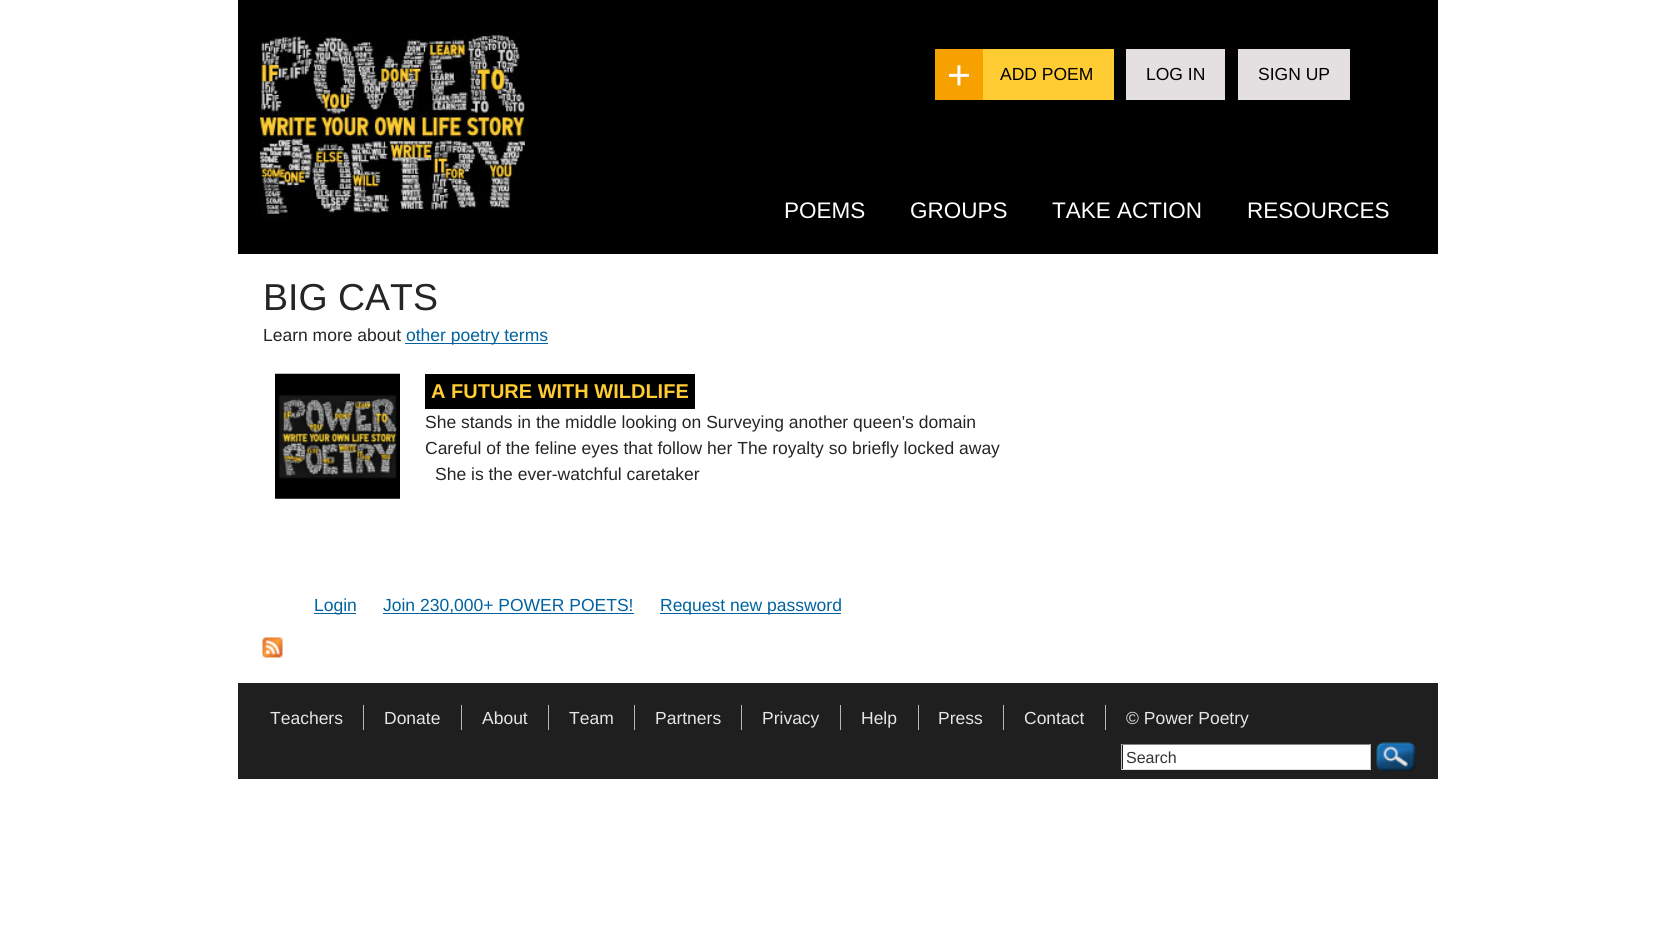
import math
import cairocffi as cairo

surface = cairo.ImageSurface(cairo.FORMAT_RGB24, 1674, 945)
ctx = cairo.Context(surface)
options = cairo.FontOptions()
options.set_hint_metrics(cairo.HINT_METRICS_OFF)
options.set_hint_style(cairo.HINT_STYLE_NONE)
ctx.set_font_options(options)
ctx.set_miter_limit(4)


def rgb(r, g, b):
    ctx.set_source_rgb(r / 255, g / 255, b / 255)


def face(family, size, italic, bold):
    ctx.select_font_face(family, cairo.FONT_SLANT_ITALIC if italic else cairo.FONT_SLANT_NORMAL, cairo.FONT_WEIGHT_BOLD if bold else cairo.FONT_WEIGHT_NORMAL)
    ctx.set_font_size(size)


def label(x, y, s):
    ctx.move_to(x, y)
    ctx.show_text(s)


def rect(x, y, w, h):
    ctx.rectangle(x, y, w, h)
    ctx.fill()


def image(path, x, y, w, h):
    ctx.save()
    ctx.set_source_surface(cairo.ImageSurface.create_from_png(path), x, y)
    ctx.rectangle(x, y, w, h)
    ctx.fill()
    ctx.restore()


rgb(255, 255, 255)
ctx.paint()
rgb(0, 0, 0)
rect(238, 0, 1200, 254)
image('image0.png', 259, 31, 266, 190)
rgb(255, 204, 51)
rect(983, 49, 131, 51)
rgb(247, 161, 0)
rect(935, 49, 48, 51)
face('Liberation Sans', 41, 0, 0)
rgb(255, 255, 255)
label(947, 89, '+')
face('Liberation Sans', 17.5, 0, 0)
rgb(0, 0, 0)
label(1000, 80, 'ADD POEM')
rgb(228, 224, 225)
rect(1126, 49, 99, 51)
rgb(0, 0, 0)
label(1146, 80, 'LOG IN')
rgb(228, 224, 225)
rect(1238, 49, 112, 51)
rgb(0, 0, 0)
label(1258, 80, 'SIGN UP')
face('Liberation Sans', 22.5, 0, 0)
rgb(255, 255, 255)
label(784, 218, 'POEMS')
label(910, 218, 'GROUPS')
label(1052, 218, 'TAKE ACTION')
label(1247, 218, 'RESOURCES')
face('Liberation Sans', 37.5, 0, 0)
rgb(37, 37, 37)
label(263, 310, 'BIG CATS')
face('Liberation Sans', 17.5, 0, 0)
label(263, 341, 'Learn more about')
rgb(0, 98, 160)
rect(405, 343, 143, 1)
label(406, 341, 'other poetry terms')
image('image1.png', 275, 373, 125, 126)
rgb(0, 0, 0)
rect(425, 374, 270, 35)
face('Liberation Sans', 20, 0, 1)
rgb(255, 204, 51)
label(431, 398, 'A FUTURE WITH WILDLIFE')
face('Liberation Sans', 17.5, 0, 0)
rgb(37, 37, 37)
label(425, 428, 'She stands in the middle looking on Surveying another queen\'s domain')
label(425, 454, 'Careful of the feline eyes that follow her The royalty so briefly locked away')
label(435, 480, 'She is the ever-watchful caretaker')
rgb(0, 98, 160)
rect(314, 613, 42, 1)
label(314, 611, 'Login')
rect(383, 613, 251, 1)
label(383, 611, 'Join 230,000+ POWER POETS!')
rect(660, 613, 181, 1)
label(660, 611, 'Request new password')
image('image2.png', 262, 637, 21, 21)
rgb(31, 31, 32)
rect(238, 683, 1200, 96)
rgb(184, 182, 183)
rect(363, 705, 1, 25)
rgb(231, 229, 229)
label(270, 724, 'Teachers')
rgb(184, 182, 183)
rect(461, 705, 1, 25)
rgb(231, 229, 229)
label(384, 724, 'Donate')
rgb(184, 182, 183)
rect(548, 705, 1, 25)
rgb(231, 229, 229)
label(482, 724, 'About')
rgb(184, 182, 183)
rect(634, 705, 1, 25)
rgb(231, 229, 229)
label(569, 724, 'Team')
rgb(184, 182, 183)
rect(741, 705, 1, 25)
rgb(231, 229, 229)
label(655, 724, 'Partners')
rgb(184, 182, 183)
rect(840, 705, 1, 25)
rgb(231, 229, 229)
label(762, 724, 'Privacy')
rgb(184, 182, 183)
rect(918, 705, 1, 25)
rgb(231, 229, 229)
label(861, 724, 'Help')
rgb(184, 182, 183)
rect(1003, 705, 1, 25)
rgb(231, 229, 229)
label(938, 724, 'Press')
rgb(184, 182, 183)
rect(1105, 705, 1, 25)
rgb(231, 229, 229)
label(1024, 724, 'Contact')
label(1126, 724, '© Power Poetry')
rgb(255, 255, 255)
rect(1123, 745, 247, 24)
rgb(132, 132, 132)
rect(1121, 744, 250, 1)
rgb(193, 193, 193)
rect(1370, 744, 1, 26)
rgb(225, 225, 225)
rect(1121, 769, 250, 1)
rgb(193, 193, 193)
rect(1121, 744, 1, 26)
face('Liberation Sans', 16, 0, 0)
rgb(51, 51, 51)
label(1126, 763, 'Search')
image('image3.png', 1376, 742, 40, 30)
surface.write_to_png('render.png')
